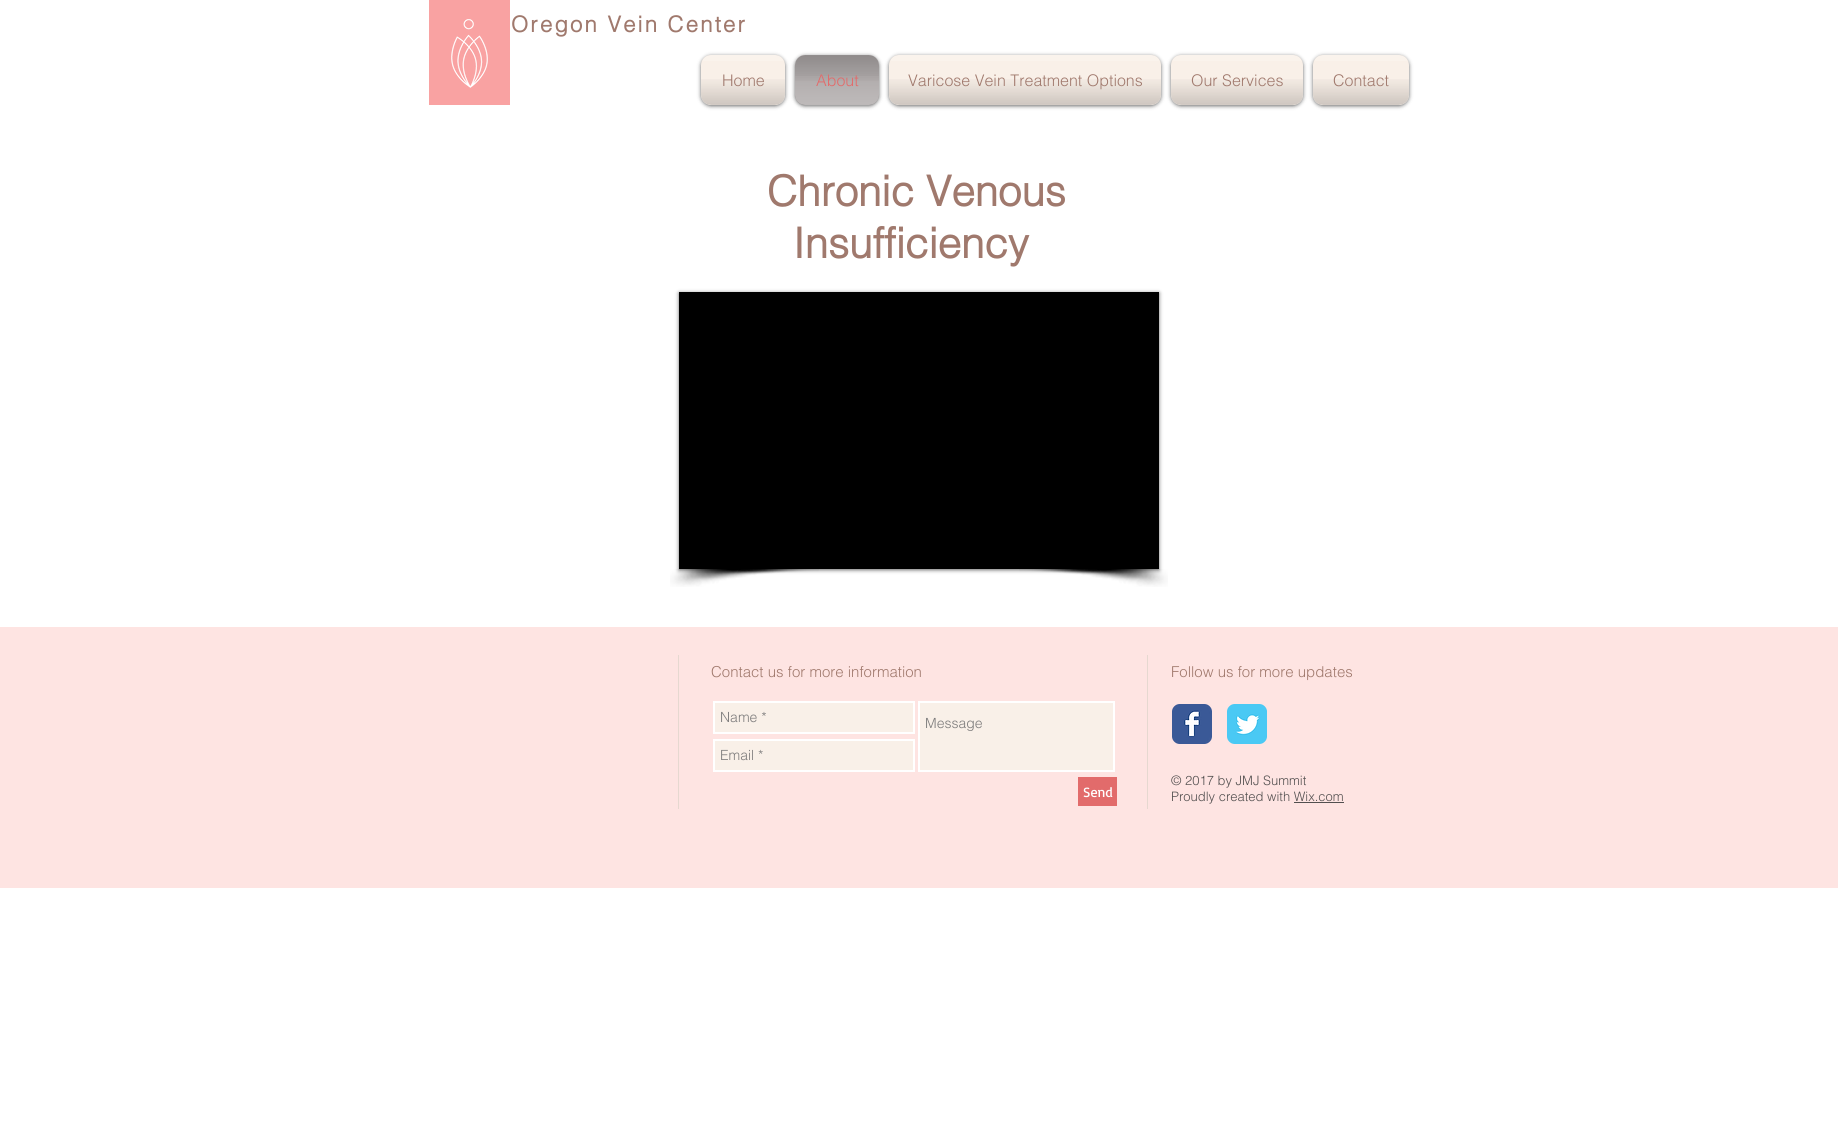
import math
import cairocffi as cairo

surface = cairo.ImageSurface(cairo.FORMAT_RGB24, 1838, 1137)
ctx = cairo.Context(surface)
options = cairo.FontOptions()
options.set_hint_metrics(cairo.HINT_METRICS_OFF)
options.set_hint_style(cairo.HINT_STYLE_NONE)
ctx.set_font_options(options)
ctx.set_miter_limit(4)


def rgb(r, g, b):
    ctx.set_source_rgb(r / 255, g / 255, b / 255)


def face(family, size, italic, bold):
    ctx.select_font_face(family, cairo.FONT_SLANT_ITALIC if italic else cairo.FONT_SLANT_NORMAL, cairo.FONT_WEIGHT_BOLD if bold else cairo.FONT_WEIGHT_NORMAL)
    ctx.set_font_size(size)


def label(x, y, s):
    ctx.move_to(x, y)
    ctx.show_text(s)


def tracked(x, y, s, letter, word):
    ctx.move_to(x, y)
    for ch in s:
        ctx.show_text(ch)
        ctx.rel_move_to(letter + word * (ch == ' '), 0)


def rect(x, y, w, h):
    ctx.rectangle(x, y, w, h)
    ctx.fill()


def rrect(x, y, w, h, r):
    ctx.new_sub_path()
    for i, (u, v) in enumerate([(x + w - r, y + h - r), (x + r, y + h - r), (x + r, y + r), (x + w - r, y + r)]):
        ctx.arc(u, v, r, i * math.pi / 2, (i + 1) * math.pi / 2)
    ctx.close_path()


def soft_shadow(x, y, w, h, r, blur, alpha):
    ctx.push_group_with_content(cairo.CONTENT_ALPHA)
    ctx.set_operator(cairo.OPERATOR_SOURCE)
    for i in range(15, -16, -2):
        e = blur * i / 6
        if min(w, h) + 2 * e > 0:
            ctx.set_source_rgba(0, 0, 0, alpha * math.erfc((i - 1) / 8.5) / 2)
            rrect(x - e, y - e, w + 2 * e, h + 2 * e, max(0, min(r + e + blur * .6, min(w, h) / 2 + e)))
            ctx.fill()
    ctx.mask(ctx.pop_group())


def image(path, x, y, w, h):
    ctx.save()
    ctx.set_source_surface(cairo.ImageSurface.create_from_png(path), x, y)
    ctx.rectangle(x, y, w, h)
    ctx.fill()
    ctx.restore()


rgb(255, 255, 255)
ctx.paint()
rgb(249, 162, 162)
rect(429, 0, 81, 105)
image('image0.png', 451, 19, 37, 69)
face('helvetica', 22, 0, 1)
rgb(160, 121, 109)
tracked(511, 32, 'Oregon Vein Center', 2.25, 0)
rgb(0, 0, 0)
soft_shadow(701, 56, 84, 50, 10, 2, 0.6)
rgb(249, 240, 232)
rrect(701, 55, 84, 50, 10)
ctx.fill()
image('image1.png', 703, 55, 80, 6)
image('image2.png', 701, 79, 84, 26)
face('helvetica Light', 16, 0, 0)
rgb(160, 121, 109)
label(722, 86, 'Home')
rgb(0, 0, 0)
soft_shadow(795, 56, 84, 50, 10, 2, 0.6)
rgb(173, 168, 168)
rrect(795, 55, 84, 50, 10)
ctx.fill()
image('image3.png', 795, 55, 84, 26)
image('image4.png', 795, 76, 84, 29)
rgb(226, 107, 107)
label(816, 86, 'About')
rgb(0, 0, 0)
soft_shadow(889, 56, 272, 50, 10, 2, 0.6)
rgb(249, 240, 232)
rrect(889, 55, 272, 50, 10)
ctx.fill()
image('image5.png', 891, 55, 268, 6)
image('image6.png', 889, 79, 272, 26)
rgb(160, 121, 109)
label(908, 86, 'Varicose Vein Treatment Options')
rgb(0, 0, 0)
soft_shadow(1171, 56, 132, 50, 10, 2, 0.6)
rgb(249, 240, 232)
rrect(1171, 55, 132, 50, 10)
ctx.fill()
image('image7.png', 1173, 55, 128, 6)
image('image8.png', 1171, 79, 132, 26)
rgb(160, 121, 109)
label(1191, 86, 'Our Services')
rgb(0, 0, 0)
soft_shadow(1313, 56, 96, 50, 10, 2, 0.6)
rgb(249, 240, 232)
rrect(1313, 55, 96, 50, 10)
ctx.fill()
image('image9.png', 1315, 55, 92, 6)
image('image10.png', 1313, 79, 96, 26)
rgb(160, 121, 109)
label(1333, 86, 'Contact')
face('helvetica', 42, 0, 1)
label(767, 206, 'Chronic Venous')
label(793, 258, 'Insufficiency')
rgb(0, 0, 0)
soft_shadow(679, 293, 480, 277, 0, 2, 0.6)
rgb(0, 0, 0)
rect(679, 292, 480, 277)
image('image11.png', 670, 569, 149, 18)
image('image12.png', 1019, 569, 149, 18)
rgb(254, 228, 226)
rect(0, 627, 1838, 261)
rgb(230, 216, 208)
rect(678, 655, 1, 154)
face('helvetica Light', 15, 0, 0)
rgb(160, 121, 109)
label(711, 677, 'Contact us for more information')
rgb(230, 216, 208)
rect(1147, 655, 1, 154)
rgb(160, 121, 109)
label(1171, 677, 'Follow us for more updates')
rgb(249, 240, 232)
ctx.rectangle(714, 702, 200, 31)
ctx.fill_preserve()
rgb(255, 255, 255)
ctx.stroke()
face('helvetica Light', 14, 0, 0)
rgb(124, 123, 123)
label(720, 722, 'Name *')
rgb(249, 240, 232)
ctx.rectangle(919, 702, 195, 69)
ctx.fill_preserve()
rgb(255, 255, 255)
ctx.stroke()
rgb(124, 123, 123)
label(925, 728, 'Message')
rgb(249, 240, 232)
ctx.rectangle(714, 740, 200, 31)
ctx.fill_preserve()
rgb(255, 255, 255)
ctx.stroke()
rgb(124, 123, 123)
label(720, 760, 'Email *')
rgb(226, 107, 107)
rect(1078, 777, 39, 29)
face('Basic', 14, 0, 0)
rgb(255, 255, 255)
label(1083, 797, 'Send')
image('image13.png', 1172, 704, 40, 40)
image('image14.png', 1227, 704, 40, 40)
face('helvetica Light', 13, 0, 0)
rgb(82, 79, 79)
label(1171, 785, '© 2017 by JMJ Summit')
label(1171, 801, 'Proudly created with Wix.com')
rect(1294, 802, 50, 1)
surface.write_to_png('render.png')
